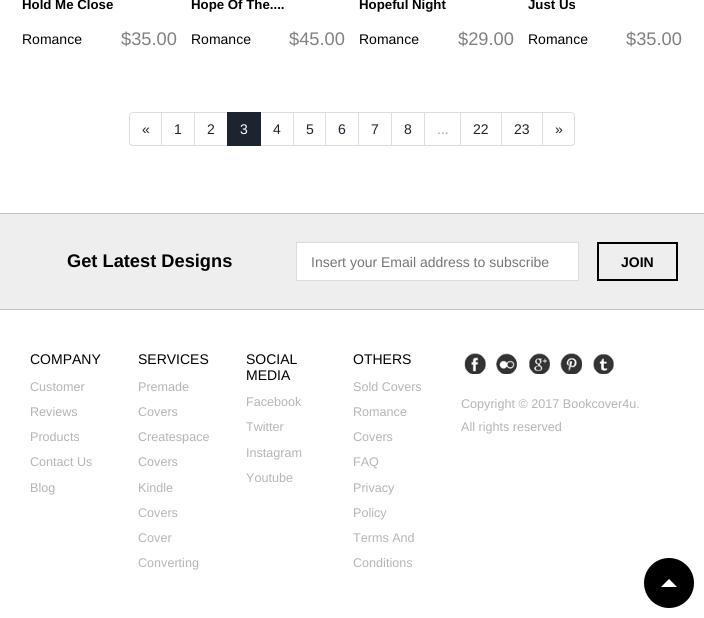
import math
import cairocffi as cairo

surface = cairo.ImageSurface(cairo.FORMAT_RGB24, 704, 618)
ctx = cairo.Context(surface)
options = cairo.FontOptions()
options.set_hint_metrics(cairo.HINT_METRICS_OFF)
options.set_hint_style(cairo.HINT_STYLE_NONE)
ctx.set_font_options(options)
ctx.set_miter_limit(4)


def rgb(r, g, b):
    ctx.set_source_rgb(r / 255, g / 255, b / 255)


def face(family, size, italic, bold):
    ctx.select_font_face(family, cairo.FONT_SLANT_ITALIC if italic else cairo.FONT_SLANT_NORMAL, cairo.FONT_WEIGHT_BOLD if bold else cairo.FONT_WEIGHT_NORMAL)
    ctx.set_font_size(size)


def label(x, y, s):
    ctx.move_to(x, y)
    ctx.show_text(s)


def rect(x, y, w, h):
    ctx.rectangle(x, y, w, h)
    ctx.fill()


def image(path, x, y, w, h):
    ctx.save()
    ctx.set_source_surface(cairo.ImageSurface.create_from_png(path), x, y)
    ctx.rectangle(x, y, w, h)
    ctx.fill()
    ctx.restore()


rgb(255, 255, 255)
ctx.paint()
face('Liberation Sans', 13.25, 0, 1)
rgb(0, 0, 0)
label(22, 9, 'Hold Me Close')
face('Liberation Sans', 14, 0, 0)
label(22, 44, 'Romance')
face('Liberation Sans', 18.25, 0, 0)
rgb(128, 128, 128)
label(121, 45, '$35.00')
face('Liberation Sans', 13.25, 0, 1)
rgb(0, 0, 0)
label(191, 9, 'Hope Of The....')
face('Liberation Sans', 14, 0, 0)
label(191, 44, 'Romance')
face('Liberation Sans', 18.25, 0, 0)
rgb(128, 128, 128)
label(289, 45, '$45.00')
face('Liberation Sans', 13.25, 0, 1)
rgb(0, 0, 0)
label(359, 9, 'Hopeful Night')
face('Liberation Sans', 14, 0, 0)
label(359, 44, 'Romance')
face('Liberation Sans', 18.25, 0, 0)
rgb(128, 128, 128)
label(458, 45, '$29.00')
face('Liberation Sans', 13.25, 0, 1)
rgb(0, 0, 0)
label(528, 9, 'Just Us')
face('Liberation Sans', 14, 0, 0)
label(528, 44, 'Romance')
face('Liberation Sans', 18.25, 0, 0)
rgb(128, 128, 128)
label(626, 45, '$35.00')
ctx.new_path()
ctx.move_to(133, 112.5)
ctx.line_to(161.5, 112.5)
ctx.line_to(161.5, 145.5)
ctx.line_to(133, 145.5)
ctx.curve_to(131, 145.5, 129.5, 144, 129.5, 142)
ctx.line_to(129.5, 116)
ctx.curve_to(129.5, 114, 131, 112.5, 133, 112.5)
ctx.close_path()
rgb(221, 221, 221)
ctx.set_line_width(1)
ctx.stroke()
face('Liberation Sans', 14, 0, 0)
rgb(27, 36, 47)
label(142, 134, '«')
ctx.rectangle(161.5, 112.5, 33, 33)
rgb(221, 221, 221)
ctx.stroke()
rgb(27, 36, 47)
label(174, 134, '1')
ctx.rectangle(194.5, 112.5, 33, 33)
rgb(221, 221, 221)
ctx.stroke()
rgb(27, 36, 47)
label(207, 134, '2')
ctx.rectangle(260.5, 112.5, 33, 33)
rgb(221, 221, 221)
ctx.stroke()
rgb(27, 36, 47)
rect(227, 112, 34, 34)
rgb(255, 255, 255)
label(240, 134, '3')
rgb(27, 36, 47)
label(273, 134, '4')
ctx.rectangle(293.5, 112.5, 32, 33)
rgb(221, 221, 221)
ctx.stroke()
rgb(27, 36, 47)
label(306, 134, '5')
ctx.rectangle(325.5, 112.5, 33, 33)
rgb(221, 221, 221)
ctx.stroke()
rgb(27, 36, 47)
label(338, 134, '6')
ctx.rectangle(358.5, 112.5, 33, 33)
rgb(221, 221, 221)
ctx.stroke()
rgb(27, 36, 47)
label(371, 134, '7')
ctx.rectangle(391.5, 112.5, 33, 33)
rgb(221, 221, 221)
ctx.stroke()
rgb(27, 36, 47)
label(404, 134, '8')
ctx.rectangle(424.5, 112.5, 36, 33)
rgb(221, 221, 221)
ctx.stroke()
rgb(153, 153, 153)
label(437, 134, '...')
ctx.rectangle(460.5, 112.5, 41, 33)
rgb(221, 221, 221)
ctx.stroke()
rgb(27, 36, 47)
label(473, 134, '22')
ctx.rectangle(501.5, 112.5, 41, 33)
rgb(221, 221, 221)
ctx.stroke()
rgb(27, 36, 47)
label(514, 134, '23')
rgb(255, 255, 255)
ctx.new_path()
ctx.move_to(542.5, 112.5)
ctx.line_to(571, 112.5)
ctx.curve_to(573, 112.5, 574.5, 114, 574.5, 116)
ctx.line_to(574.5, 142)
ctx.curve_to(574.5, 144, 573, 145.5, 571, 145.5)
ctx.line_to(542.5, 145.5)
ctx.close_path()
ctx.fill_preserve()
rgb(221, 221, 221)
ctx.stroke()
rgb(27, 36, 47)
label(555, 134, '»')
rgb(238, 238, 238)
rect(0, 214, 704, 95)
rgb(204, 192, 192)
rect(0, 213, 704, 1)
rect(0, 309, 704, 1)
face('Liberation Sans', 18.25, 0, 1)
rgb(0, 0, 0)
label(67, 267, 'Get Latest Designs')
rgb(255, 255, 255)
ctx.rectangle(296.5, 242.5, 282, 38)
ctx.fill_preserve()
rgb(220, 218, 218)
ctx.stroke()
face('Liberation Sans', 14, 0, 0)
rgb(117, 117, 117)
label(311, 267, 'Insert your Email address to subscribe')
ctx.rectangle(598, 243, 79, 37)
rgb(0, 0, 0)
ctx.set_line_width(2)
ctx.stroke()
face('Liberation Sans', 14, 0, 1)
label(621, 267, 'JOIN')
face('Liberation Sans', 14, 0, 0)
label(30, 364, 'COMPANY')
face('Liberation Sans', 12.6, 0, 0)
rgb(183, 180, 180)
label(30, 391, 'Customer')
label(30, 416, 'Reviews')
label(30, 441, 'Products')
label(30, 466, 'Contact Us')
label(30, 492, 'Blog')
face('Liberation Sans', 14, 0, 0)
rgb(0, 0, 0)
label(138, 364, 'SERVICES')
face('Liberation Sans', 12.6, 0, 0)
rgb(183, 180, 180)
label(138, 391, 'Premade')
label(138, 416, 'Covers')
label(138, 441, 'Createspace')
label(138, 466, 'Covers')
label(138, 492, 'Kindle')
label(138, 517, 'Covers')
label(138, 542, 'Cover')
label(138, 567, 'Converting')
face('Liberation Sans', 14, 0, 0)
rgb(0, 0, 0)
label(246, 364, 'SOCIAL')
label(246, 380, 'MEDIA')
face('Liberation Sans', 12.6, 0, 0)
rgb(183, 180, 180)
label(246, 406, 'Facebook')
label(246, 431, 'Twitter')
label(246, 457, 'Instagram')
label(246, 482, 'Youtube')
face('Liberation Sans', 14, 0, 0)
rgb(0, 0, 0)
label(353, 364, 'OTHERS')
face('Liberation Sans', 12.6, 0, 0)
rgb(183, 180, 180)
label(353, 391, 'Sold Covers')
label(353, 416, 'Romance')
label(353, 441, 'Covers')
label(353, 466, 'FAQ')
label(353, 492, 'Privacy')
label(353, 517, 'Policy')
label(353, 542, 'Terms And')
label(353, 567, 'Conditions')
image('image0.png', 464, 353, 22, 21)
image('image1.png', 496, 353, 21, 21)
image('image2.png', 529, 353, 21, 21)
image('image3.png', 560, 353, 22, 21)
image('image4.png', 593, 354, 21, 20)
label(461, 408, 'Copyright © 2017 Bookcover4u.')
label(461, 431, 'All rights reserved')
rgb(0, 0, 0)
ctx.new_path()
ctx.arc(669, 583, 25, 0, 2 * math.pi)
ctx.fill()
rgb(255, 255, 255)
ctx.new_path()
ctx.move_to(677, 587)
ctx.line_to(661, 587)
ctx.line_to(669, 579)
ctx.close_path()
ctx.fill()
surface.write_to_png('render.png')
